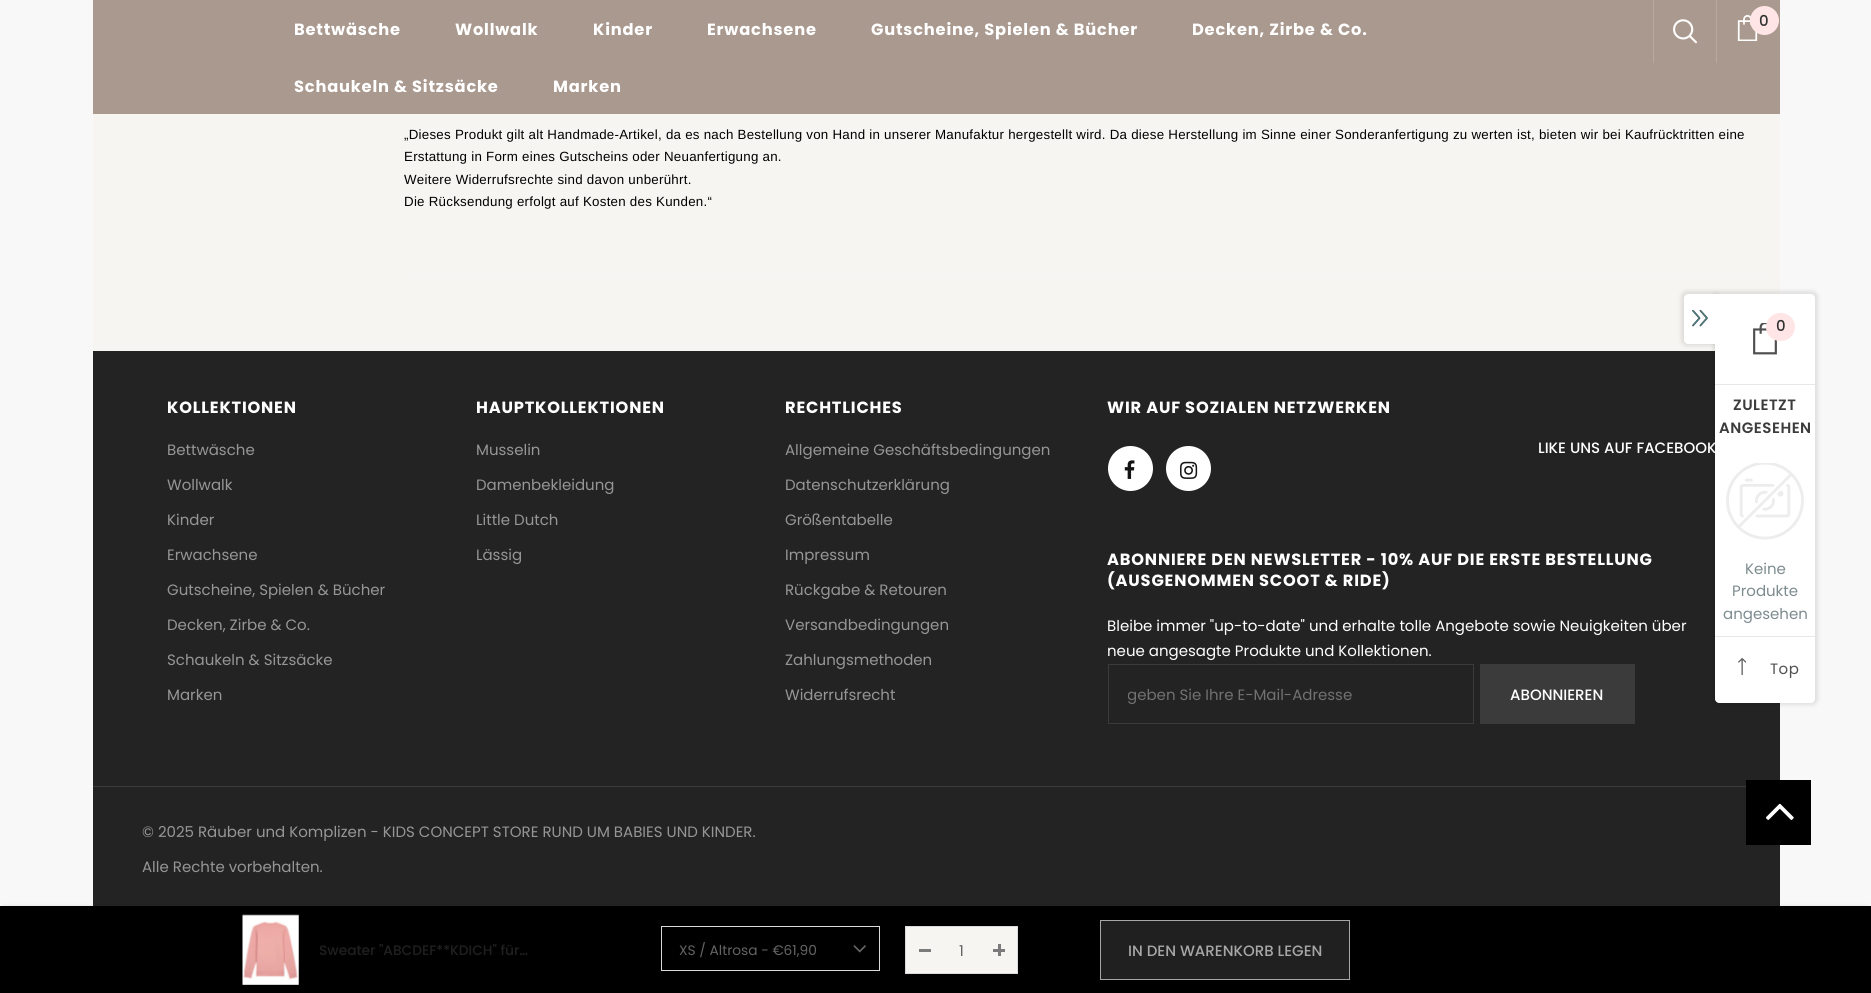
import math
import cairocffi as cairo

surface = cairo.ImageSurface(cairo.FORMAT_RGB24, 1871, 993)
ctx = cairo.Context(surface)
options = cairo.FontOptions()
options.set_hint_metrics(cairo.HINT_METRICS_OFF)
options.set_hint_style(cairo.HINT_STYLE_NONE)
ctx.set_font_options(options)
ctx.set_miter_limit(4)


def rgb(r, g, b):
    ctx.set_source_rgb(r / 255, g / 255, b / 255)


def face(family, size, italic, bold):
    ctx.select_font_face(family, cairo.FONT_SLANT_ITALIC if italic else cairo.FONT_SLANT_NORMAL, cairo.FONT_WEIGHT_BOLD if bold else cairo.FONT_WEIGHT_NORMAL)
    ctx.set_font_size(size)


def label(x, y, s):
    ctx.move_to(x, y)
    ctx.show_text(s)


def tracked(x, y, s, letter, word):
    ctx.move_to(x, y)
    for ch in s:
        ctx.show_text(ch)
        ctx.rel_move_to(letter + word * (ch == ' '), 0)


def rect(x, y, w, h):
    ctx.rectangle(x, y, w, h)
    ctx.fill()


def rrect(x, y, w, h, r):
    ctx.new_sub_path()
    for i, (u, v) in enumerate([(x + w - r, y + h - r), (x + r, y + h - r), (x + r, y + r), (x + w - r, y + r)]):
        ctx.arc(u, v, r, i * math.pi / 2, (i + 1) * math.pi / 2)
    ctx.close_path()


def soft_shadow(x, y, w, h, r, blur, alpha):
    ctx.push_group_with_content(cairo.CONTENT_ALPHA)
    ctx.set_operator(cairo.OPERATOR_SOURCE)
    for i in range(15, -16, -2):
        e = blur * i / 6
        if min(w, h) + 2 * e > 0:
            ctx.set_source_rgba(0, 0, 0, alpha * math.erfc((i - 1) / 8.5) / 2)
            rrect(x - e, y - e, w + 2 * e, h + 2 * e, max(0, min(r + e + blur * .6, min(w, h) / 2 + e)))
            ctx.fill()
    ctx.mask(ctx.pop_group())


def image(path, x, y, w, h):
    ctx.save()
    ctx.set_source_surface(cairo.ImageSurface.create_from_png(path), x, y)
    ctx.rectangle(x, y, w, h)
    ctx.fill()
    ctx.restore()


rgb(248, 248, 248)
ctx.paint()
rgb(170, 153, 143)
rect(93, 0, 1687, 114)
image('image0.png', 1737, 15, 21, 26)
rgb(255, 229, 229)
ctx.arc(1764.5, 20.5, 14.5, 0, 2 * math.pi)
ctx.fill()
face('Poppins Medium', 15, 0, 0)
rgb(50, 50, 50)
label(1759, 26, '0')
face('Poppins', 16.25, 0, 1)
rgb(255, 255, 255)
tracked(294, 35, 'Bettwäsche', 0.8, 0)
tracked(455, 35, 'Wollwalk', 0.8, 0)
tracked(593, 35, 'Kinder', 0.8, 0)
tracked(707, 35, 'Erwachsene', 0.8, 0)
tracked(871, 35, 'Gutscheine, Spielen & Bücher', 0.8, 0)
tracked(1192, 35, 'Decken, Zirbe & Co.', 0.8, 0)
tracked(294, 92, 'Schaukeln & Sitzsäcke', 0.8, 0)
tracked(553, 92, 'Marken', 0.8, 0)
rgb(183, 168, 160)
rect(1653, 0, 1, 63)
image('image1.png', 1673, 19, 24, 25)
rect(1716, 0, 1, 63)
rgb(247, 245, 241)
rect(93, 114, 1687, 237)
face('Liberation Sans', 13.33, 0, 0)
rgb(0, 0, 0)
tracked(404, 139, '„Dieses Produkt gilt alt Handmade-Artikel, da es nach Bestellung von Hand in unserer Manufaktur hergestellt wird. Da diese Herstellung im Sinne einer Sonderanfertigung zu werten ist, bieten wir bei Kaufrücktritten eine', 0.25, 0)
tracked(404, 161, 'Erstattung in Form eines Gutscheins oder Neuanfertigung an.', 0.25, 0)
tracked(404, 184, 'Weitere Widerrufsrechte sind davon unberührt.', 0.25, 0)
tracked(404, 206, 'Die Rücksendung erfolgt auf Kosten des Kunden.“', 0.25, 0)
rgb(246, 246, 246)
rect(405, 275, 1363, 1)
rgb(35, 35, 35)
rect(93, 351, 1687, 555)
rgb(0, 0, 0)
soft_shadow(4, 906, 1864, 80, 0, 2, 0.1)
rgb(0, 0, 0)
rect(0, 906, 1871, 87)
image('image2.png', 242, 914, 57, 71)
face('Poppins Medium', 13.75, 0, 0)
rgb(32, 32, 32)
label(319, 955, 'Sweater "ABCDEF**KDICH" für…')
ctx.rectangle(661.5, 926.5, 218, 44)
rgb(218, 218, 218)
ctx.set_line_width(1)
ctx.stroke()
face('Poppins', 13.75, 0, 0)
rgb(100, 100, 100)
label(679, 955, 'XS / Altrosa - €61,90')
image('image3.png', 853, 945, 13, 8)
rgb(247, 245, 241)
ctx.rectangle(905.5, 926.5, 112, 47)
ctx.fill_preserve()
rgb(218, 218, 218)
ctx.stroke()
rgb(123, 123, 123)
rect(919, 949, 12, 3)
face('Poppins', 15, 0, 0)
rgb(100, 100, 100)
label(959, 956, '1')
rgb(123, 123, 123)
rect(993, 949, 12, 3)
rect(998, 944, 3, 12)
rgb(32, 32, 32)
ctx.rectangle(1100.5, 920.5, 249, 59)
ctx.fill_preserve()
rgb(167, 167, 167)
ctx.stroke()
face('Poppins Medium', 15, 0, 0)
label(1128, 956, 'IN DEN WARENKORB LEGEN')
face('Poppins', 16.25, 0, 1)
rgb(255, 255, 255)
tracked(167, 413, 'KOLLEKTIONEN', 0.8, 0)
face('Poppins', 15, 0, 0)
rgb(150, 150, 150)
label(167, 455, 'Bettwäsche')
label(167, 490, 'Wollwalk')
label(167, 525, 'Kinder')
label(167, 560, 'Erwachsene')
label(167, 595, 'Gutscheine, Spielen & Bücher')
label(167, 630, 'Decken, Zirbe & Co.')
label(167, 665, 'Schaukeln & Sitzsäcke')
label(167, 700, 'Marken')
face('Poppins', 16.25, 0, 1)
rgb(255, 255, 255)
tracked(476, 413, 'HAUPTKOLLEKTIONEN', 0.8, 0)
face('Poppins', 15, 0, 0)
rgb(150, 150, 150)
label(476, 455, 'Musselin')
label(476, 490, 'Damenbekleidung')
label(476, 525, 'Little Dutch')
label(476, 560, 'Lässig')
face('Poppins', 16.25, 0, 1)
rgb(255, 255, 255)
tracked(785, 413, 'RECHTLICHES', 0.8, 0)
face('Poppins', 15, 0, 0)
rgb(150, 150, 150)
label(785, 455, 'Allgemeine Geschäftsbedingungen')
label(785, 490, 'Datenschutzerklärung')
label(785, 525, 'Größentabelle')
label(785, 560, 'Impressum')
label(785, 595, 'Rückgabe & Retouren')
label(785, 630, 'Versandbedingungen')
label(785, 665, 'Zahlungsmethoden')
label(785, 700, 'Widerrufsrecht')
face('Poppins', 16.25, 0, 1)
rgb(255, 255, 255)
tracked(1107, 413, 'WIR AUF SOZIALEN NETZWERKEN', 0.8, 0)
ctx.new_path()
ctx.arc(1130.5, 468.5, 22.5, 0, 2 * math.pi)
ctx.fill()
image('image4.png', 1124, 460, 11, 19)
ctx.arc(1188.5, 468.5, 22.5, 0, 2 * math.pi)
ctx.fill()
image('image5.png', 1180, 461, 18, 18)
face('Poppins Medium', 15, 0, 0)
label(1538, 453, 'LIKE UNS AUF FACEBOOK')
face('Poppins', 16.25, 0, 1)
tracked(1107, 565, 'ABONNIERE DEN NEWSLETTER - 10% AUF DIE ERSTE BESTELLUNG', 0.8, 0)
tracked(1107, 586, '(AUSGENOMMEN SCOOT & RIDE)', 0.8, 0)
face('Poppins', 15, 0, 0)
label(1107, 631, 'Bleibe immer "up-to-date" und erhalte tolle Angebote sowie Neuigkeiten über')
label(1107, 656, 'neue angesagte Produkte und Kollektionen.')
ctx.rectangle(1108.5, 664.5, 365, 59)
rgb(59, 59, 59)
ctx.stroke()
ctx.save()
ctx.rectangle(1128, 684, 326, 22)
ctx.clip()
rgb(113, 113, 113)
label(1127, 700, 'geben Sie Ihre E-Mail-Adresse')
ctx.restore()
rect(1480, 664, 155, 60)
face('Poppins Medium', 15, 0, 0)
rgb(255, 255, 255)
label(1510, 700, 'ABONNIEREN')
rgb(59, 59, 59)
rect(93, 786, 1653, 1)
face('Poppins', 15, 0, 0)
rgb(150, 150, 150)
label(142, 837, '© 2025 Räuber und Komplizen - KIDS CONCEPT STORE RUND UM BABIES UND KINDER.')
label(142, 872, 'Alle Rechte vorbehalten.')
rgb(0, 0, 0)
rect(1746, 780, 65, 65)
image('image6.png', 1765, 803, 29, 17)
rgb(0, 0, 0)
soft_shadow(1713, 291, 105, 414, 6, 2, 0.1)
rgb(255, 255, 255)
ctx.new_path()
ctx.move_to(1715, 294)
ctx.line_to(1811, 294)
ctx.curve_to(1813, 294, 1815, 296, 1815, 298)
ctx.line_to(1815, 699)
ctx.curve_to(1815, 701, 1813, 703, 1811, 703)
ctx.line_to(1719, 703)
ctx.curve_to(1717, 703, 1715, 701, 1715, 699)
ctx.close_path()
ctx.fill()
rgb(0, 0, 0)
soft_shadow(1681, 291, 38, 55, 6, 2, 0.1)
rgb(255, 255, 255)
ctx.new_path()
ctx.move_to(1688, 294)
ctx.line_to(1716, 294)
ctx.line_to(1716, 344)
ctx.line_to(1688, 344)
ctx.curve_to(1686, 344, 1684, 342, 1684, 340)
ctx.line_to(1684, 298)
ctx.curve_to(1684, 296, 1686, 294, 1688, 294)
ctx.close_path()
ctx.fill()
image('image7.png', 1692, 310, 16, 17)
rect(1715, 294, 7, 54)
rgb(231, 231, 231)
rect(1715, 384, 100, 1)
image('image8.png', 1753, 323, 24, 32)
rgb(255, 229, 229)
rrect(1766, 313, 29, 28, 14)
ctx.fill()
face('Poppins Medium', 15, 0, 0)
rgb(50, 50, 50)
label(1776, 331, '0')
face('Poppins SemiBold', 15, 0, 0)
rgb(60, 60, 60)
tracked(1733, 410, 'ZULETZT', 0.5, 0)
tracked(1719, 433, 'ANGESEHEN', 0.5, 0)
image('image9.png', 1726, 463, 78, 77)
face('Poppins', 15, 0, 0)
rgb(125, 139, 142)
label(1745, 574, 'Keine')
label(1732, 596, 'Produkte')
label(1723, 619, 'angesehen')
rgb(231, 231, 231)
rect(1715, 636, 100, 1)
image('image10.png', 1738, 658, 9, 18)
rgb(80, 80, 80)
tracked(1770, 674, 'Top', 0.5, 0)
surface.write_to_png('render.png')
